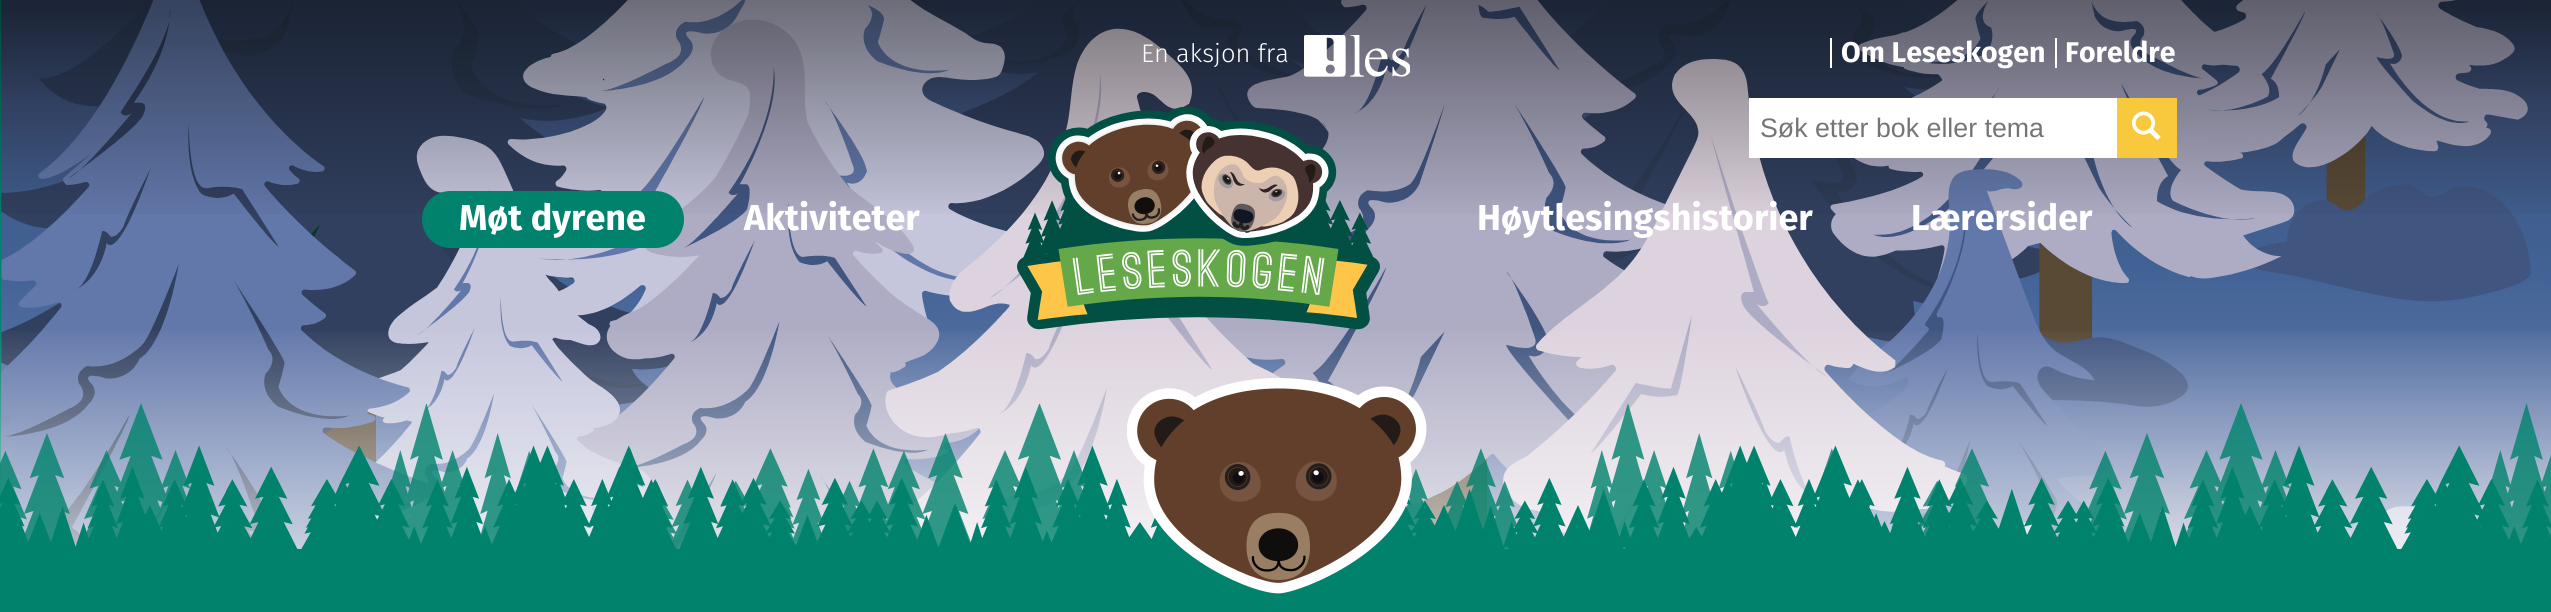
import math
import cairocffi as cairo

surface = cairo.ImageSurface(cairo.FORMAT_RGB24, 2551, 612)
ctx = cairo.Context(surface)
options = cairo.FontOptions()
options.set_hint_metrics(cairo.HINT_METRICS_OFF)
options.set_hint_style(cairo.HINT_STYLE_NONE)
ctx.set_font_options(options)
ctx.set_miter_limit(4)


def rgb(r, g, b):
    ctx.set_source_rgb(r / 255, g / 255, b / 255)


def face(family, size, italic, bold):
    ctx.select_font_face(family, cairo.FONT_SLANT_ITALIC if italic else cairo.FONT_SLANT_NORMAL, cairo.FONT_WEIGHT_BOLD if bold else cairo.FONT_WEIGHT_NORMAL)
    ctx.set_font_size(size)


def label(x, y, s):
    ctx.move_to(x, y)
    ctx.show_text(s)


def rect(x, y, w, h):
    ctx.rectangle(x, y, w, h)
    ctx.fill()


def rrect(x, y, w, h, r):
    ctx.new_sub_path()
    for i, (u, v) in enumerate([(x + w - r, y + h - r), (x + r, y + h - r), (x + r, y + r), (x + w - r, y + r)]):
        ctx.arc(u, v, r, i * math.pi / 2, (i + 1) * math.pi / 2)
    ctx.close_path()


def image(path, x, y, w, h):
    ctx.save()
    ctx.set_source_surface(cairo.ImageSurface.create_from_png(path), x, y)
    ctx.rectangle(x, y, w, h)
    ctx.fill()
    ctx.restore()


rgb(0, 130, 108)
ctx.paint()
image('image0.png', 1, 0, 2550, 549)
gradient = cairo.LinearGradient(1276, 0, 1276, 225)
gradient.add_color_stop_rgba(0, 0, 0, 0, 0.45)
gradient.add_color_stop_rgba(1, 0, 0, 0, 0)
ctx.set_source(gradient)
rect(0, 0, 2551, 214)
face('Fira Sans Light', 25.5, 0, 0)
rgb(255, 255, 255)
label(1141, 62, 'En aksjon fra')
image('image1.png', 1304, 35, 106, 42)
rect(1830, 38, 2, 30)
face('Fira Sans', 28.5, 0, 1)
label(1841, 62, 'Om Leseskogen')
rect(2055, 38, 2, 30)
label(2065, 62, 'Foreldre')
rect(1749, 98, 368, 60)
face('Liberation Sans', 26.75, 0, 0)
rgb(117, 117, 117)
label(1760, 137, 'Søk etter bok eller tema')
rgb(249, 201, 61)
rect(2117, 98, 60, 60)
image('image2.png', 2132, 111, 29, 29)
rgb(0, 130, 108)
rrect(422, 191, 262, 57, 28.5)
ctx.fill()
face('Fira Sans', 36, 0, 1)
rgb(255, 255, 255)
label(459, 230, 'Møt dyrene')
label(744, 230, 'Aktiviteter')
image('image3.png', 1017, 107, 363, 223)
label(1477, 230, 'Høytlesingshistorier')
label(1911, 230, 'Lærersider')
gradient = cairo.LinearGradient(1276, 549, 1276, 324)
gradient.add_color_stop_rgba(0, 1, 1, 1, 0.65)
gradient.add_color_stop_rgba(1, 1, 1, 1, 0)
ctx.set_source(gradient)
rect(0, 331, 2551, 218)
image('image5.png', 0, 403, 2551, 146)
image('image4.png', 1127, 378, 300, 216)
surface.write_to_png('render.png')
